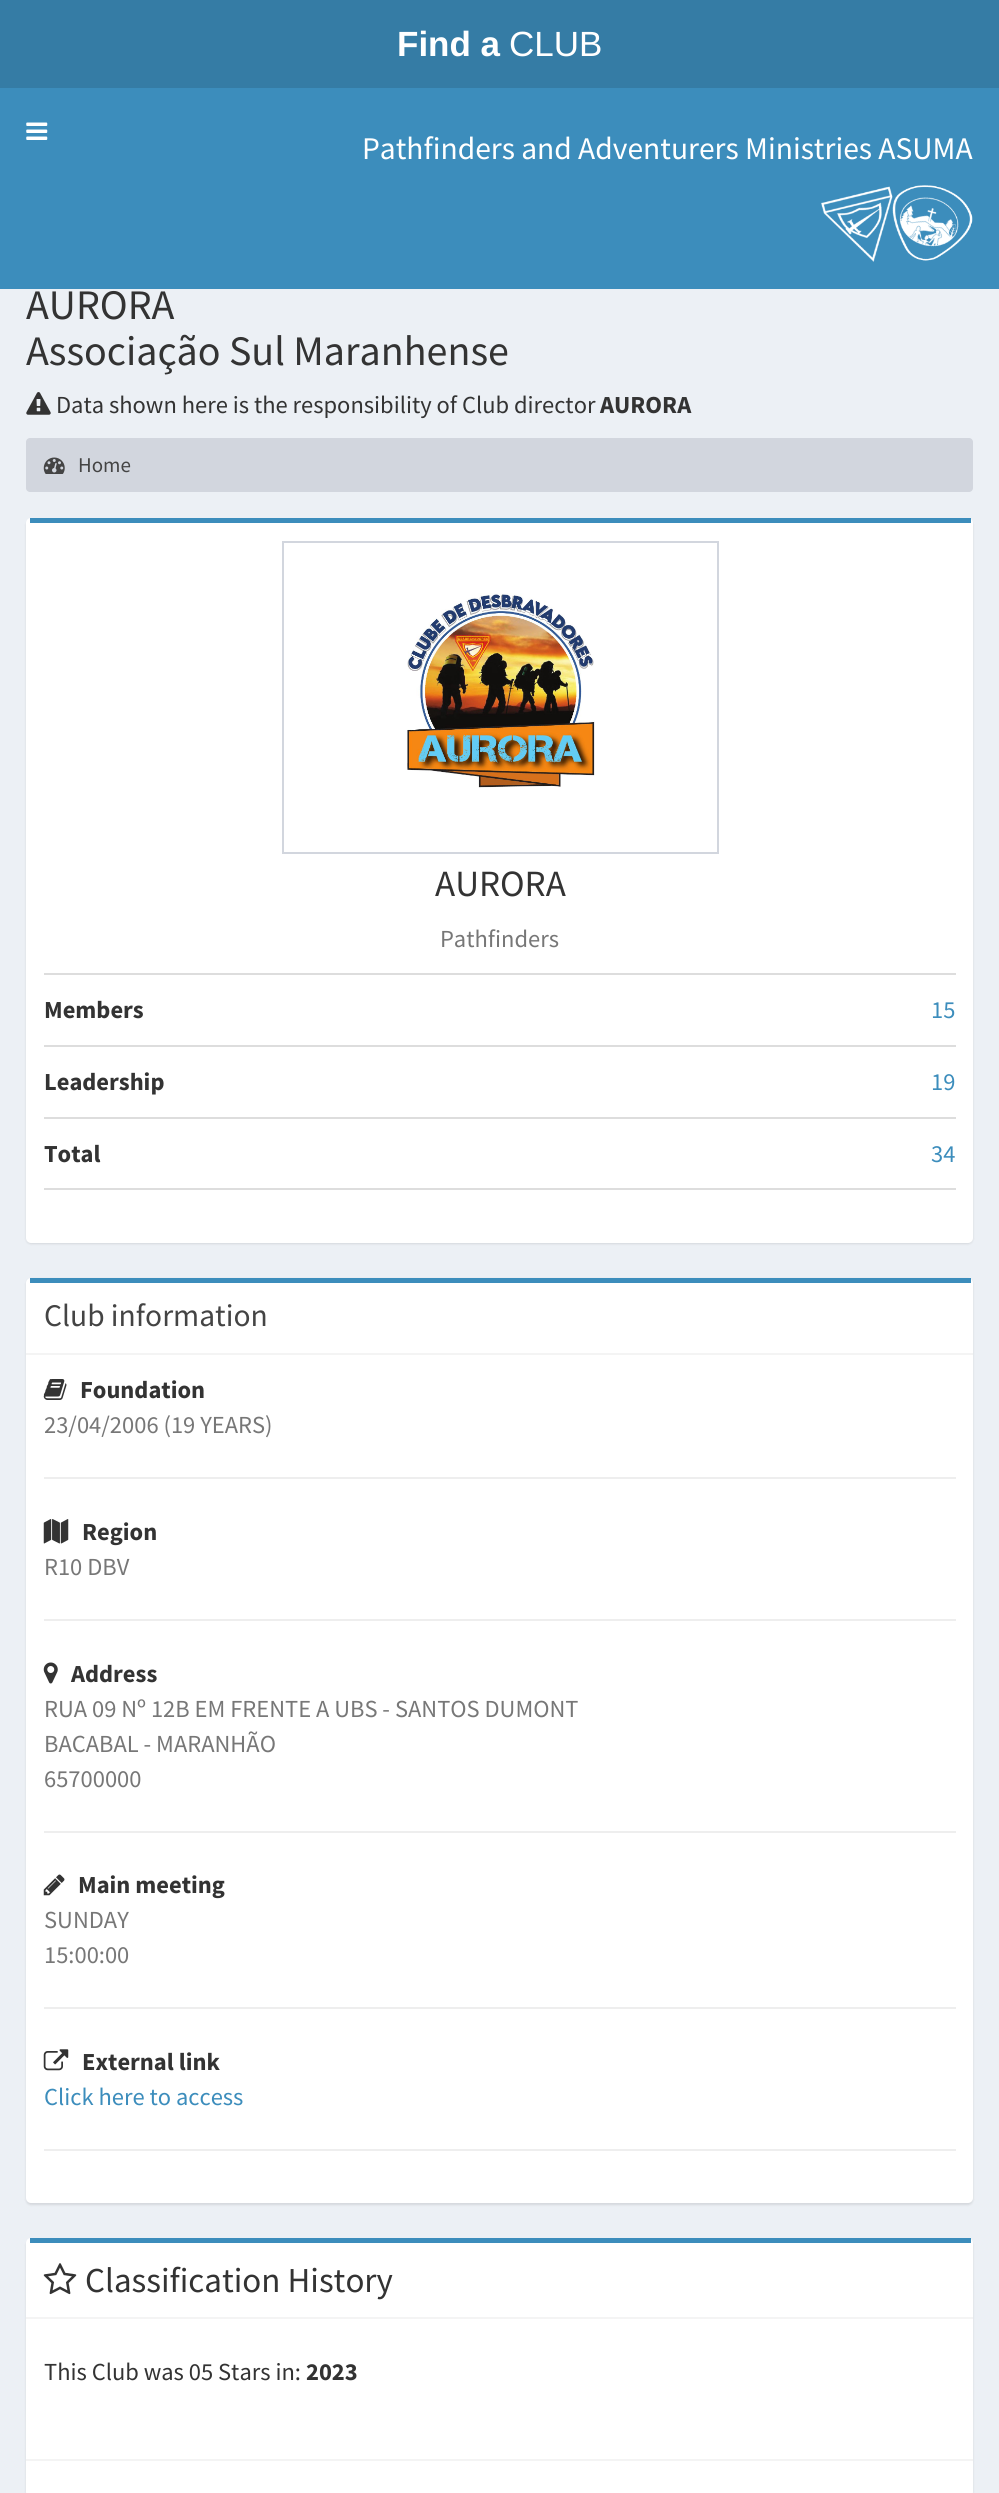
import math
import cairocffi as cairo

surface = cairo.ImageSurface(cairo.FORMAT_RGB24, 999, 2493)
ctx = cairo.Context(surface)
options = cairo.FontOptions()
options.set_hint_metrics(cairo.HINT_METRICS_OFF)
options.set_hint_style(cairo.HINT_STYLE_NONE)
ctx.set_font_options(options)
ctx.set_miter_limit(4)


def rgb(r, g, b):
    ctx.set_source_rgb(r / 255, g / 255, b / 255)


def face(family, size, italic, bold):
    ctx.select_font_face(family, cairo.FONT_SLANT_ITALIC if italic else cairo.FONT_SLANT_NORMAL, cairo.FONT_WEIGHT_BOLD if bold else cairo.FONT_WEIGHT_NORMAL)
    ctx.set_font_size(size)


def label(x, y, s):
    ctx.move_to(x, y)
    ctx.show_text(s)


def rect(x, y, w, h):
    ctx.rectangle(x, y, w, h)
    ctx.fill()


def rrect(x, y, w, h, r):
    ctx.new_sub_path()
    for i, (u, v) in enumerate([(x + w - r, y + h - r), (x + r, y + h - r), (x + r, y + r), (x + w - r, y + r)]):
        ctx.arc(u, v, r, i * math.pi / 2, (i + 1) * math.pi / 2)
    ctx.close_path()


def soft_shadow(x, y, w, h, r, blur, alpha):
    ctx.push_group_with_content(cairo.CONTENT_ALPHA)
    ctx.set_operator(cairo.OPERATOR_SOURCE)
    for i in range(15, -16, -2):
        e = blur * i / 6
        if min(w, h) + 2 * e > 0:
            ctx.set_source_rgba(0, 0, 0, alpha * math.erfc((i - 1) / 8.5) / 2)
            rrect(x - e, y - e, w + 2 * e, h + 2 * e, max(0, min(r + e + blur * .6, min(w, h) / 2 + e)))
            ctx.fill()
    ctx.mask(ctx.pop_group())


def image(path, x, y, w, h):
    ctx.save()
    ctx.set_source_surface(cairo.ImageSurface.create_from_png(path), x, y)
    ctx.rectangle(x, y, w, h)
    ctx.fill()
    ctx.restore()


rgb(236, 240, 245)
ctx.paint()
rgb(53, 124, 165)
rect(0, 0, 999, 88)
face('Liberation Sans', 35, 0, 1)
rgb(255, 255, 255)
label(397, 56, 'Find a')
face('Liberation Sans', 35, 0, 0)
label(509, 56, 'CLUB')
rgb(60, 141, 188)
rect(0, 88, 999, 201)
image('image0.png', 26, 122, 22, 18)
face('Source Sans Pro', 31.5, 0, 0)
rgb(255, 255, 255)
label(362, 159, 'Pathfinders and Adventurers Ministries ASUMA')
image('image1.png', 821, 185, 152, 77)
face('Source Sans Pro', 42, 0, 0)
rgb(51, 51, 51)
label(26, 319, 'AURORA')
label(26, 365, 'Associação Sul Maranhense')
image('image2.png', 26, 392, 25, 23)
face('Source Sans Pro', 24.5, 0, 0)
label(56, 413, 'Data shown here is the responsibility of Club director')
face('Source Sans Pro', 24.5, 0, 1)
label(600, 413, 'AURORA')
rgb(210, 214, 222)
rrect(26, 438, 947, 54, 4)
ctx.fill()
image('image3.png', 43, 457, 22, 17)
face('Source Sans Pro', 21, 0, 0)
rgb(68, 68, 68)
label(78, 472, 'Home')
rgb(0, 0, 0)
soft_shadow(26, 520, 947, 724, 5, 1, 0.1)
rgb(255, 255, 255)
rrect(26, 518, 947, 725, 5)
ctx.fill()
rgb(60, 141, 188)
rect(30, 518, 941, 5)
ctx.rectangle(283, 542, 435, 311)
rgb(210, 214, 222)
ctx.stroke()
image('image4.png', 407, 593, 188, 195)
face('Source Sans Pro', 37, 0, 0)
rgb(51, 51, 51)
label(435, 896, 'AURORA')
face('Source Sans Pro', 24.5, 0, 0)
rgb(119, 119, 119)
label(440, 947, 'Pathfinders')
rgb(221, 221, 221)
rect(44, 973, 912, 2)
face('Source Sans Pro', 24.5, 0, 1)
rgb(51, 51, 51)
label(44, 1018, 'Members')
face('Source Sans Pro', 24.5, 0, 0)
rgb(60, 141, 188)
label(931, 1018, '15')
rgb(221, 221, 221)
rect(44, 1045, 912, 2)
face('Source Sans Pro', 24.5, 0, 1)
rgb(51, 51, 51)
label(44, 1090, 'Leadership')
face('Source Sans Pro', 24.5, 0, 0)
rgb(60, 141, 188)
label(931, 1090, '19')
rgb(221, 221, 221)
rect(44, 1117, 912, 2)
rect(44, 1188, 912, 2)
face('Source Sans Pro', 24.5, 0, 1)
rgb(51, 51, 51)
label(44, 1162, 'Total')
face('Source Sans Pro', 24.5, 0, 0)
rgb(60, 141, 188)
label(931, 1162, '34')
rgb(0, 0, 0)
soft_shadow(26, 1279, 947, 926, 5, 1, 0.1)
rgb(255, 255, 255)
rrect(26, 1278, 947, 925, 5)
ctx.fill()
rgb(60, 141, 188)
rect(30, 1278, 941, 5)
rgb(244, 244, 244)
rect(26, 1353, 947, 2)
face('Source Sans Pro', 31.5, 0, 0)
rgb(68, 68, 68)
label(44, 1326, 'Club information')
image('image5.png', 43, 1379, 24, 21)
face('Source Sans Pro', 24.5, 0, 1)
rgb(51, 51, 51)
label(80, 1398, 'Foundation')
face('Source Sans Pro', 24.5, 0, 0)
rgb(119, 119, 119)
label(44, 1433, '23/04/2006 (19 YEARS)')
rgb(238, 238, 238)
rect(44, 1477, 912, 2)
image('image6.png', 43, 1519, 26, 25)
face('Source Sans Pro', 24.5, 0, 1)
rgb(51, 51, 51)
label(82, 1540, 'Region')
face('Source Sans Pro', 24.5, 0, 0)
rgb(119, 119, 119)
label(44, 1575, 'R10 DBV')
rgb(238, 238, 238)
rect(44, 1619, 912, 2)
image('image7.png', 43, 1662, 15, 22)
face('Source Sans Pro', 24.5, 0, 1)
rgb(51, 51, 51)
label(71, 1682, 'Address')
face('Source Sans Pro', 24.5, 0, 0)
rgb(119, 119, 119)
label(44, 1717, 'RUA 09 Nº 12B EM FRENTE A UBS - SANTOS DUMONT')
label(44, 1752, 'BACABAL - MARANHÃO')
label(44, 1787, '65700000')
rgb(238, 238, 238)
rect(44, 1831, 912, 2)
image('image8.png', 43, 1874, 22, 22)
face('Source Sans Pro', 24.5, 0, 1)
rgb(51, 51, 51)
label(78, 1893, 'Main meeting')
face('Source Sans Pro', 24.5, 0, 0)
rgb(119, 119, 119)
label(44, 1928, 'SUNDAY')
label(44, 1963, '15:00:00')
rgb(238, 238, 238)
rect(44, 2007, 912, 2)
image('image9.png', 43, 2049, 26, 22)
face('Source Sans Pro', 24.5, 0, 1)
rgb(51, 51, 51)
label(82, 2070, 'External link')
face('Source Sans Pro', 24.5, 0, 0)
rgb(60, 141, 188)
label(44, 2105, 'Click here to access')
rgb(238, 238, 238)
rect(44, 2149, 912, 2)
rgb(0, 0, 0)
soft_shadow(26, 2240, 947, 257, 5, 1, 0.1)
rgb(255, 255, 255)
rrect(26, 2238, 947, 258, 5)
ctx.fill()
rgb(60, 141, 188)
rect(30, 2238, 941, 5)
rgb(244, 244, 244)
rect(26, 2317, 947, 2)
image('image10.png', 43, 2263, 34, 32)
face('Source Sans Pro', 35, 0, 0)
rgb(51, 51, 51)
label(85, 2292, 'Classification History')
face('Source Sans Pro', 24.5, 0, 0)
label(44, 2380, 'This Club was 05 Stars in:')
face('Source Sans Pro', 24.5, 0, 1)
label(306, 2380, '2023')
rgb(255, 255, 255)
ctx.new_path()
ctx.move_to(26, 2459)
ctx.line_to(973, 2459)
ctx.line_to(973, 2491)
ctx.curve_to(973, 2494, 971, 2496, 968, 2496)
ctx.line_to(31, 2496)
ctx.curve_to(28, 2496, 26, 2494, 26, 2491)
ctx.close_path()
ctx.fill()
rgb(244, 244, 244)
rect(26, 2459, 947, 2)
surface.write_to_png('render.png')
